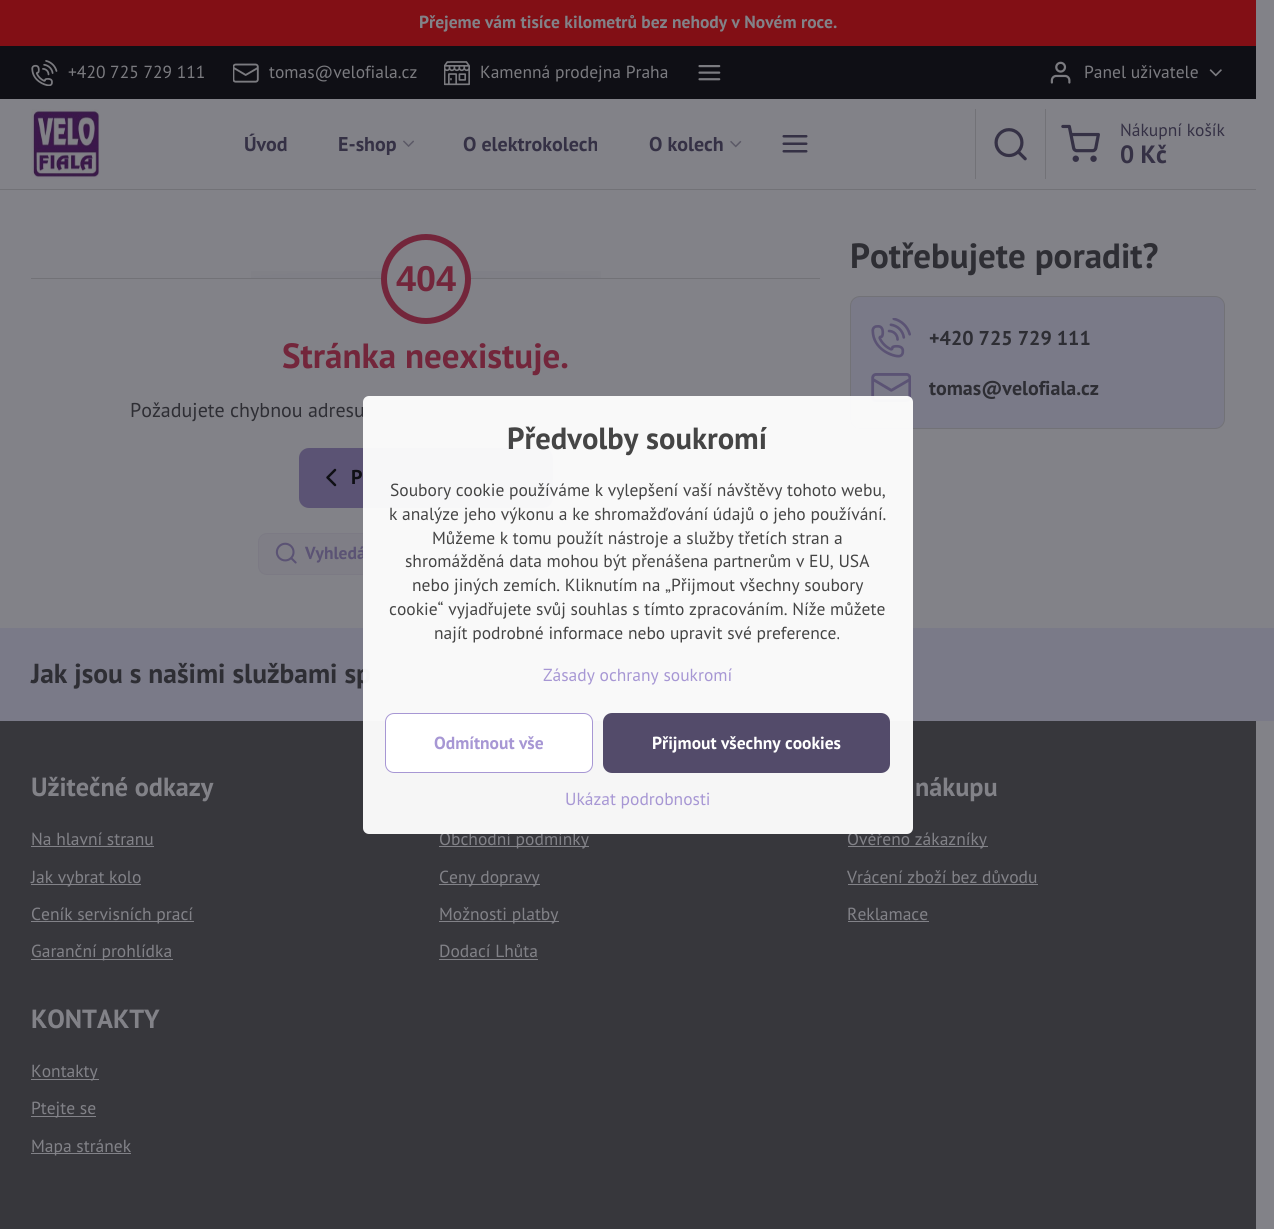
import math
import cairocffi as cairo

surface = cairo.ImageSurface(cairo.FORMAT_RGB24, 1274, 1229)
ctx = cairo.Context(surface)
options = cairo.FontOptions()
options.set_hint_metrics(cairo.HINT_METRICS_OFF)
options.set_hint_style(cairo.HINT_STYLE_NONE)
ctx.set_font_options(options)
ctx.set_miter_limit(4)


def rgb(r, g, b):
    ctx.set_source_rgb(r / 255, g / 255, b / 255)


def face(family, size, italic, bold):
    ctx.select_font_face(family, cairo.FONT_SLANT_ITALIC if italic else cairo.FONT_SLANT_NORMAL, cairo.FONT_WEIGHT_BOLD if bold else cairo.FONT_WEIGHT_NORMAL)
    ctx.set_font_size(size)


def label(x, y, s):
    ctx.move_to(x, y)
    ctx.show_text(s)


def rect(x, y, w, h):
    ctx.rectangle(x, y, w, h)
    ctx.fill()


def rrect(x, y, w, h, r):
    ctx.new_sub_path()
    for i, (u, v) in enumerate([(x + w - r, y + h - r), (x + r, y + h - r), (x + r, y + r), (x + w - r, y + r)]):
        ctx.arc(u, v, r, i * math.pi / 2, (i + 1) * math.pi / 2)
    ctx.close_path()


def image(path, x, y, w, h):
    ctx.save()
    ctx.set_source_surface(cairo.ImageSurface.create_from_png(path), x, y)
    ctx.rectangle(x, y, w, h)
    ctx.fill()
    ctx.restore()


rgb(130, 130, 136)
ctx.paint()
rgb(130, 15, 21)
rect(0, 0, 1256, 46)
face('PT Sans', 17.5, 0, 1)
rgb(130, 130, 136)
label(419, 28, 'Přejeme vám tisíce kilometrů bez nehody v Novém roce.')
rgb(15, 15, 21)
rect(0, 46, 1256, 53)
image('image0.png', 31, 60, 27, 26)
face('PT Sans', 17.5, 0, 0)
rgb(123, 123, 128)
label(68, 78, '+420 725 729 111')
image('image1.png', 233, 63, 26, 20)
label(269, 78, 'tomas@velofiala.cz')
image('image2.png', 444, 61, 26, 25)
label(480, 78, 'Kamenná prodejna Praha')
image('image3.png', 698, 65, 23, 16)
image('image4.png', 1050, 61, 21, 23)
label(1084, 78, 'Panel uživatele')
image('image5.png', 1209, 69, 13, 8)
rgb(114, 114, 119)
rect(0, 189, 1256, 1)
face('PT Sans', 20, 0, 1)
rgb(53, 49, 69)
label(244, 151, 'Úvod')
label(338, 151, 'E-shop')
image('image6.png', 403, 140, 11, 7)
label(463, 151, 'O elektrokolech')
label(649, 151, 'O kolech')
image('image7.png', 730, 140, 12, 8)
image('image8.png', 782, 135, 26, 18)
image('image9.png', 31, 109, 69, 70)
rgb(114, 114, 119)
rect(975, 109, 1, 70)
image('image10.png', 994, 128, 33, 33)
rect(1045, 109, 1, 70)
image('image11.png', 1061, 124, 39, 38)
face('PT Sans', 17.5, 0, 0)
rgb(53, 49, 69)
label(1120, 136, 'Nákupní košík')
face('PT Sans', 25, 0, 1)
label(1120, 163, '0 Kč')
rgb(114, 114, 119)
rect(31, 278, 789, 1)
gradient = cairo.RadialGradient(0, 0, 0, 0, 0, 1)
gradient.set_matrix(cairo.Matrix(1 / 669, 0, 0, 1 / 28, -1 * 426 / 669, -1 * 278 / 28))
gradient.add_color_stop_rgba(0, 0.494, 0.494, 0.522, 1)
gradient.add_color_stop_rgba(0.7, 0.51, 0.51, 0.533, 1)
ctx.set_source(gradient)
rect(251, 271, 350, 7)
rgb(130, 130, 136)
ctx.new_path()
ctx.arc(426, 279, 42, 0, 2 * math.pi)
ctx.fill_preserve()
rgb(115, 38, 59)
ctx.set_line_width(6)
ctx.stroke()
face('Liberation Sans', 36, 0, 1)
label(396, 291, '404')
face('PT Sans', 35, 0, 1)
label(282, 368, 'Stránka neexistuje.')
face('PT Sans', 20, 0, 0)
rgb(46, 46, 52)
label(130, 417, 'Požadujete chybnou adresu')
rgb(91, 83, 116)
rrect(299, 448, 254, 60, 10)
ctx.fill()
image('image12.png', 326, 468, 11, 19)
face('PT Sans', 20, 0, 1)
rgb(15, 15, 21)
label(351, 484, 'P')
rgb(127, 126, 134)
rrect(258, 533, 158, 42, 9)
ctx.fill()
rrect(258.5, 533.5, 157, 41, 8.5)
ctx.set_source_rgba(0.357, 0.325, 0.455, 0.09)
ctx.set_line_width(1)
ctx.stroke()
image('image13.png', 275, 542, 22, 22)
face('PT Sans', 17.5, 0, 1)
rgb(91, 83, 116)
label(305, 559, 'Vyhledá')
rgb(127, 126, 134)
rrect(426, 533, 168, 42, 9)
ctx.fill()
rrect(426.5, 533.5, 167, 41, 8.5)
ctx.set_source_rgba(0.357, 0.325, 0.455, 0.09)
ctx.stroke()
image('image14.png', 444, 545, 22, 16)
face('PT Sans', 35, 0, 1)
rgb(46, 46, 52)
label(850, 268, 'Potřebujete poradit?')
rgb(122, 122, 136)
rrect(850.5, 296.5, 374, 132, 9.5)
ctx.fill_preserve()
rgb(114, 114, 119)
ctx.stroke()
image('image15.png', 871, 318, 40, 40)
face('PT Sans', 20, 0, 1)
rgb(46, 46, 52)
label(929, 345, '+420 725 729 111')
image('image16.png', 871, 373, 40, 29)
label(929, 395, 'tomas@velofiala.cz')
rgb(122, 122, 136)
rect(0, 628, 31, 93)
rect(31, 628, 1243, 93)
face('PT Sans', 27.5, 0, 1)
rgb(46, 46, 52)
label(31, 683, 'Jak jsou s našimi službami sp')
rgb(55, 55, 60)
rect(0, 721, 1256, 508)
face('PT Sans', 26.25, 0, 1)
rgb(130, 130, 136)
label(31, 796, 'Užitečné odkazy')
face('PT Sans', 17.5, 0, 0)
label(31, 845, 'Na hlavní stranu')
rect(31, 846, 123, 1)
rect(31, 884, 110, 1)
label(31, 883, 'Jak vybrat kolo')
rect(31, 921, 163, 1)
label(31, 920, 'Ceník servisních prací')
rect(31, 959, 142, 1)
label(31, 957, 'Garanční prohlídka')
rect(439, 846, 150, 1)
label(439, 845, 'Obchodní podmínky')
rect(439, 884, 101, 1)
label(439, 883, 'Ceny dopravy')
rect(439, 921, 120, 1)
label(439, 920, 'Možnosti platby')
label(439, 957, 'Dodací Lhůta')
rect(439, 959, 99, 1)
face('PT Sans', 26.25, 0, 1)
label(915, 796, 'nákupu')
rect(848, 846, 140, 1)
face('PT Sans', 17.5, 0, 0)
label(847, 845, 'Ověřeno zákazníky')
label(847, 883, 'Vrácení zboží bez důvodu')
rect(848, 884, 190, 1)
label(847, 920, 'Reklamace')
rect(848, 921, 81, 1)
face('PT Sans', 26.25, 0, 1)
label(31, 1028, 'KONTAKTY')
rect(31, 1079, 68, 1)
face('PT Sans', 17.5, 0, 0)
label(31, 1077, 'Kontakty')
rect(31, 1116, 65, 1)
label(31, 1114, 'Ptejte se')
rect(31, 1153, 100, 1)
label(31, 1152, 'Mapa stránek')
ctx.set_source_rgba(1, 1, 1, 0.95)
rrect(363, 396, 550, 438, 6)
ctx.fill()
face('PT Sans', 30.6, 0, 1)
rgb(69, 69, 69)
label(507, 449, 'Předvolby soukromí')
face('PT Sans', 17.5, 0, 0)
label(390, 496, 'Soubory cookie používáme k vylepšení vaší návštěvy tohoto webu,')
label(389, 520, 'k analýze jeho výkonu a ke shromažďování údajů o jeho používání.')
label(432, 544, 'Můžeme k tomu použít nástroje a služby třetích stran a')
label(405, 567, 'shromážděná data mohou být přenášena partnerům v EU, USA')
label(412, 591, 'nebo jiných zemích. Kliknutím na „Přijmout všechny soubory')
label(389, 615, 'cookie“ vyjadřujete svůj souhlas s tímto zpracováním. Níže můžete')
label(434, 639, 'najít podrobné informace nebo upravit své preference.')
rgb(167, 151, 212)
label(543, 681, 'Zásady ochrany soukromí')
rgb(255, 255, 255)
rrect(385.5, 713.5, 207, 59, 8.5)
ctx.fill_preserve()
rgb(167, 151, 212)
ctx.stroke()
face('PT Sans', 17.5, 0, 1)
label(434, 749, 'Odmítnout vše')
rgb(83, 75, 106)
rrect(603, 713, 287, 60, 9)
ctx.fill()
rgb(255, 255, 255)
label(652, 749, 'Přijmout všechny cookies')
face('PT Sans', 17.5, 0, 0)
rgb(167, 151, 212)
label(565, 805, 'Ukázat podrobnosti')
surface.write_to_png('render.png')
